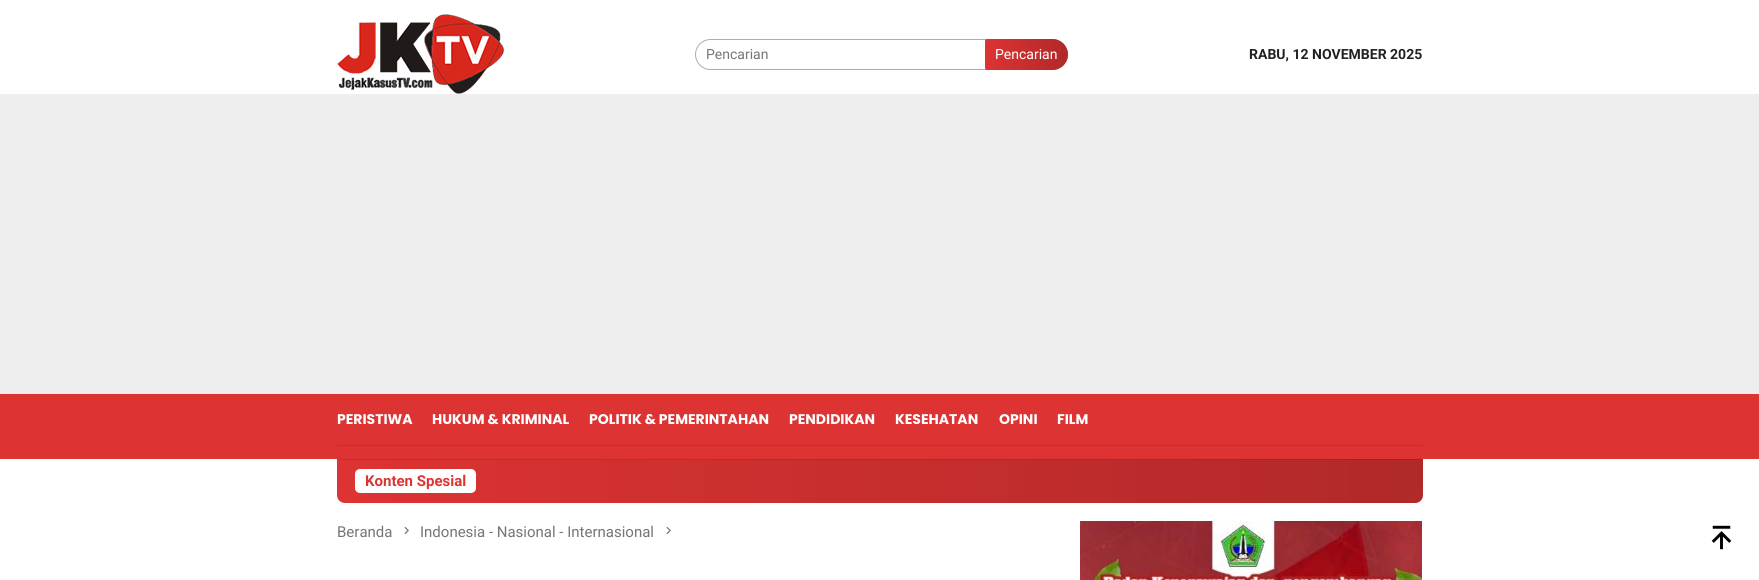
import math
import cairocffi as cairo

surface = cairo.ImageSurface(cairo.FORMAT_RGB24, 1759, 580)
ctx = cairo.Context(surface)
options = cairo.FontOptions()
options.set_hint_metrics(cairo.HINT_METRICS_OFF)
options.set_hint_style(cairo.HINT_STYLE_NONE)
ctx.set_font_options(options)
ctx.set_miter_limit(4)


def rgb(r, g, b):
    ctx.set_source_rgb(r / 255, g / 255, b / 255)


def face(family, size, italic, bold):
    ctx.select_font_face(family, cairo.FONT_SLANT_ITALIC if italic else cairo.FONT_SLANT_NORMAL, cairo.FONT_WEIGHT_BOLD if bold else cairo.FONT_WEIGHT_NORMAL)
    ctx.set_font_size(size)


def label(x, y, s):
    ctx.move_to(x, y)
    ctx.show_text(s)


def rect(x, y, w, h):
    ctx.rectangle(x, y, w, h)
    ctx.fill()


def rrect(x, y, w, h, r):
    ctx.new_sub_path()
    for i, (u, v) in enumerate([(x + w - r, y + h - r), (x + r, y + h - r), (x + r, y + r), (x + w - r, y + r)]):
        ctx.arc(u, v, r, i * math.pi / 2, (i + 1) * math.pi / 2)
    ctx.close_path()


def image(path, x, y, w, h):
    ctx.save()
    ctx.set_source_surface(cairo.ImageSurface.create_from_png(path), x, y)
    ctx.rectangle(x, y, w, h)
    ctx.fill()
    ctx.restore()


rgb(238, 238, 238)
ctx.paint()
rgb(255, 255, 255)
rect(0, 0, 1759, 94)
image('image0.png', 337, 14, 167, 80)
rrect(695.5, 39.5, 372, 30, 15)
rgb(173, 173, 173)
ctx.set_line_width(1)
ctx.stroke()
face('Roboto', 14, 0, 0)
rgb(117, 117, 117)
label(706, 59, 'Pencarian')
rgb(221, 51, 51)
ctx.new_path()
ctx.move_to(987, 39)
ctx.line_to(1052.5, 39)
ctx.curve_to(1061, 39, 1068, 46, 1068, 54.5)
ctx.curve_to(1068, 63, 1061, 70, 1052.5, 70)
ctx.line_to(987, 70)
ctx.curve_to(986, 70, 985, 69, 985, 68)
ctx.line_to(985, 41)
ctx.curve_to(985, 40, 986, 39, 987, 39)
ctx.close_path()
ctx.fill()
gradient = cairo.LinearGradient(985, 55, 1068, 55)
gradient.add_color_stop_rgba(0, 0, 0, 0, 0)
gradient.add_color_stop_rgba(1, 0, 0, 0, 0.2)
ctx.set_source(gradient)
ctx.new_path()
ctx.move_to(987, 39)
ctx.line_to(1052.5, 39)
ctx.curve_to(1061, 39, 1068, 46, 1068, 54.5)
ctx.curve_to(1068, 63, 1061, 70, 1052.5, 70)
ctx.line_to(987, 70)
ctx.curve_to(986, 70, 985, 69, 985, 68)
ctx.line_to(985, 41)
ctx.curve_to(985, 40, 986, 39, 987, 39)
ctx.close_path()
ctx.fill()
rgb(255, 255, 255)
label(995, 59, 'Pencarian')
face('Roboto', 14, 0, 1)
rgb(34, 34, 34)
label(1249, 59, 'RABU, 12 NOVEMBER 2025')
rgb(221, 51, 51)
rect(0, 394, 1759, 65)
rgb(199, 46, 46)
rect(337, 445, 1086, 1)
face('Poppins', 14, 0, 1)
rgb(255, 255, 255)
label(337, 424, 'PERISTIWA')
label(432, 424, 'HUKUM & KRIMINAL')
label(589, 424, 'POLITIK & PEMERINTAHAN')
label(789, 424, 'PENDIDIKAN')
label(895, 424, 'KESEHATAN')
label(999, 424, 'OPINI')
label(1057, 424, 'FILM')
rect(0, 459, 1759, 121)
rgb(221, 51, 51)
ctx.new_path()
ctx.move_to(337, 459)
ctx.line_to(1423, 459)
ctx.line_to(1423, 495)
ctx.curve_to(1423, 499.5, 1419.5, 503, 1415, 503)
ctx.line_to(345, 503)
ctx.curve_to(340.5, 503, 337, 499.5, 337, 495)
ctx.close_path()
ctx.fill()
gradient = cairo.LinearGradient(337, 481, 1423, 481)
gradient.add_color_stop_rgba(0, 0, 0, 0, 0)
gradient.add_color_stop_rgba(1, 0, 0, 0, 0.2)
ctx.set_source(gradient)
ctx.new_path()
ctx.move_to(337, 459)
ctx.line_to(1423, 459)
ctx.line_to(1423, 495)
ctx.curve_to(1423, 499.5, 1419.5, 503, 1415, 503)
ctx.line_to(345, 503)
ctx.curve_to(340.5, 503, 337, 499.5, 337, 495)
ctx.close_path()
ctx.fill()
ctx.set_source_rgba(0, 0, 0, 0.1)
rect(337, 459, 1086, 1)
rgb(255, 255, 255)
rrect(355, 469, 121, 24, 5)
ctx.fill()
face('Roboto', 15, 0, 1)
rgb(221, 51, 51)
label(365, 486, 'Konten Spesial')
face('Roboto', 15, 0, 0)
rgb(117, 117, 117)
label(337, 537, 'Beranda')
image('image1.png', 404, 526, 5, 9)
label(420, 537, 'Indonesia - Nasional - Internasional')
image('image1.png', 666, 526, 5, 9)
image('image2.png', 1080, 521, 342, 59)
image('image3.png', 1711, 525, 21, 25)
surface.write_to_png('render.png')
